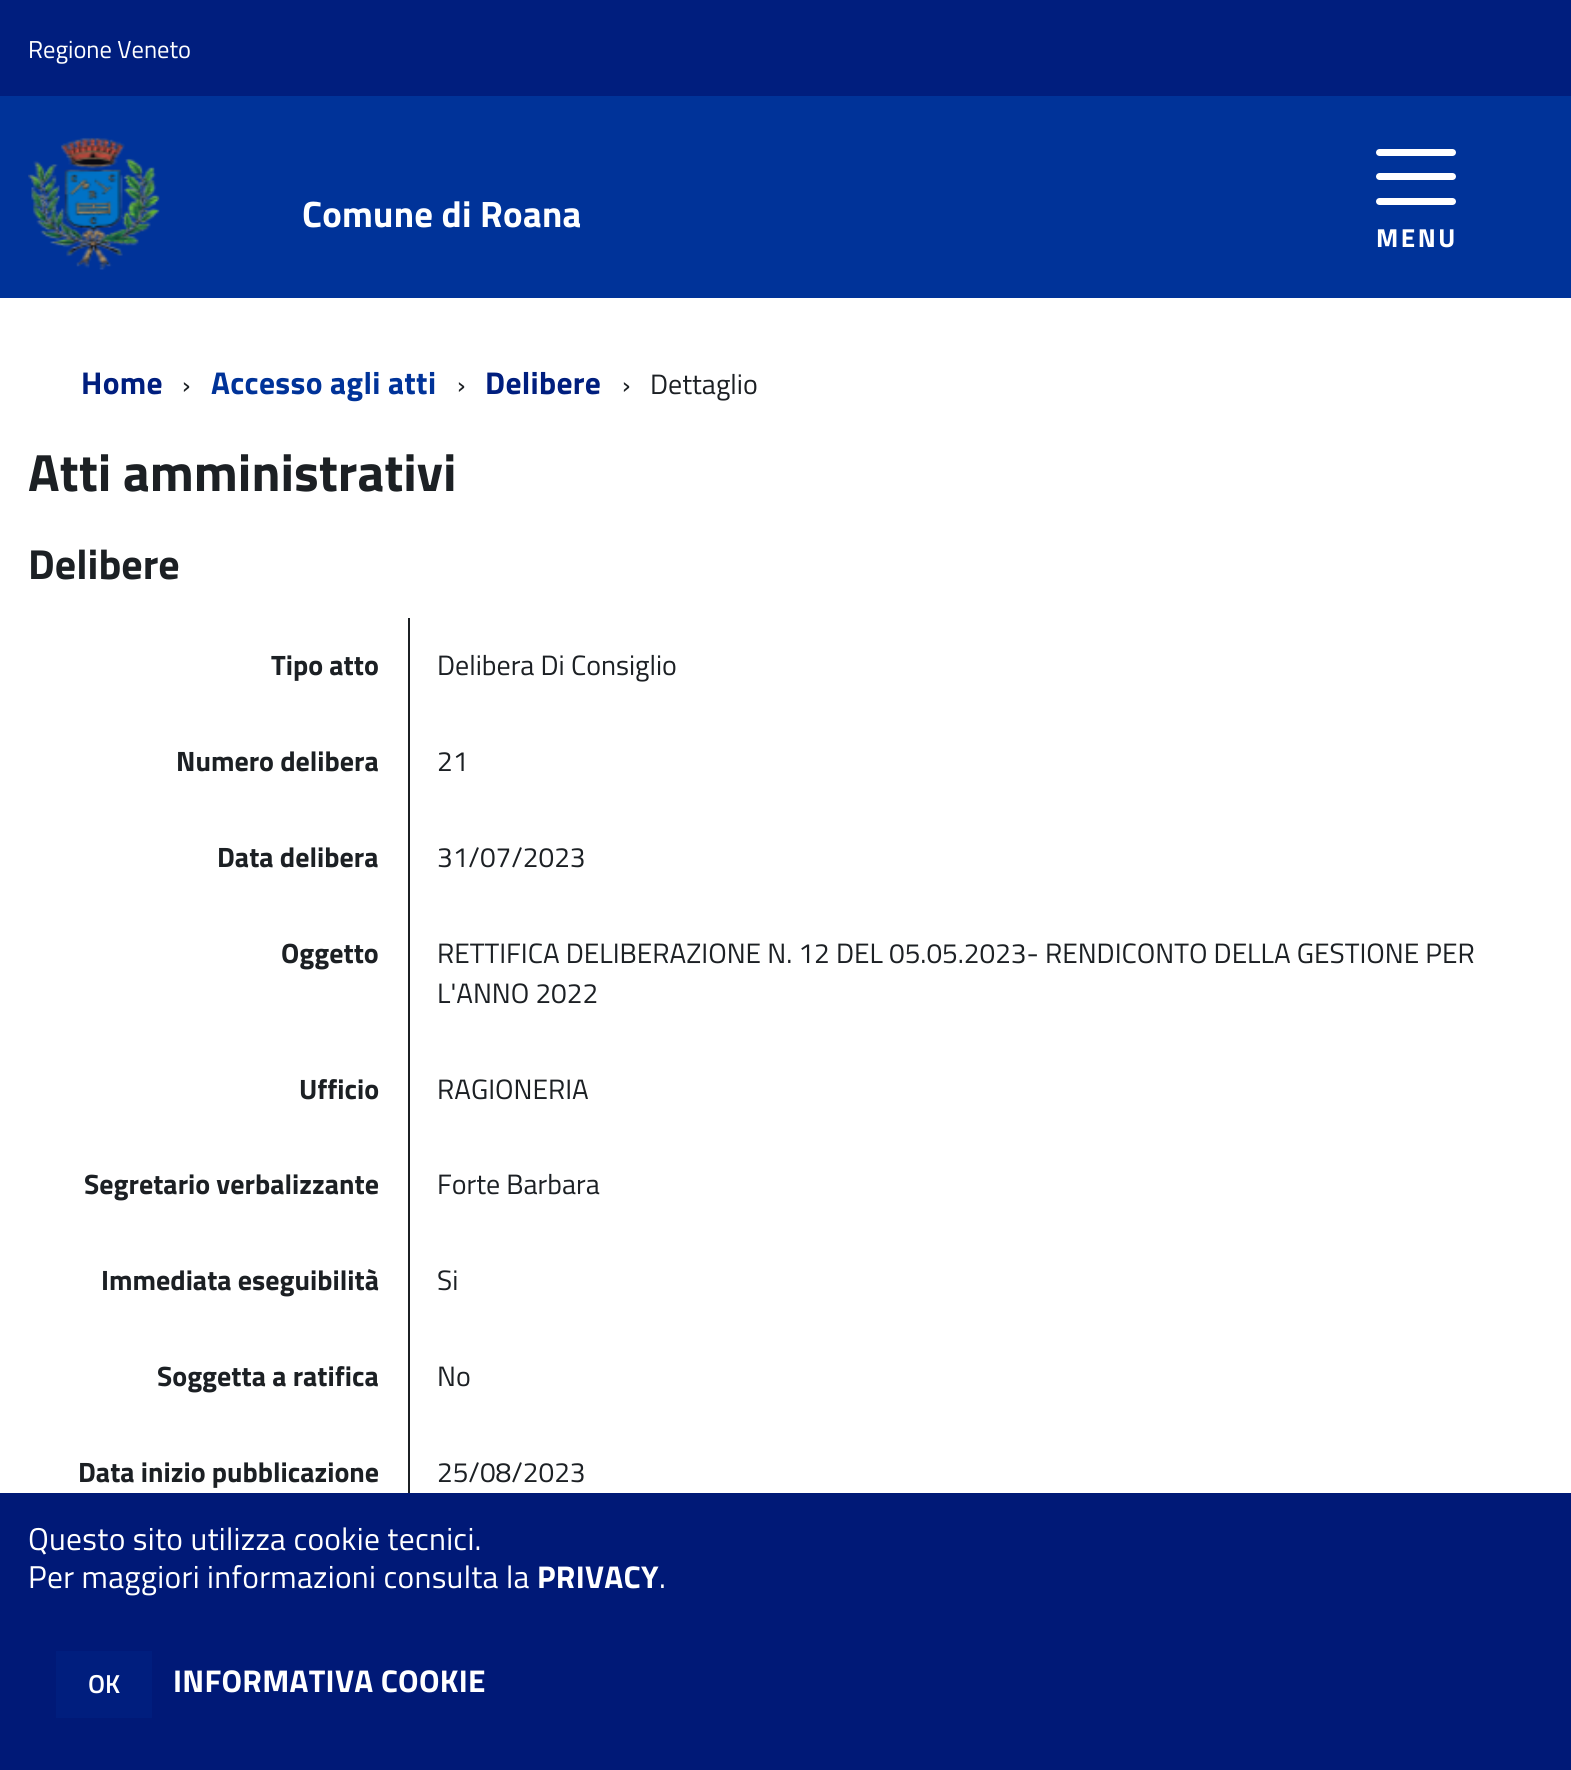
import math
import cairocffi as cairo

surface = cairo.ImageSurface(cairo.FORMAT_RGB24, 1571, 1770)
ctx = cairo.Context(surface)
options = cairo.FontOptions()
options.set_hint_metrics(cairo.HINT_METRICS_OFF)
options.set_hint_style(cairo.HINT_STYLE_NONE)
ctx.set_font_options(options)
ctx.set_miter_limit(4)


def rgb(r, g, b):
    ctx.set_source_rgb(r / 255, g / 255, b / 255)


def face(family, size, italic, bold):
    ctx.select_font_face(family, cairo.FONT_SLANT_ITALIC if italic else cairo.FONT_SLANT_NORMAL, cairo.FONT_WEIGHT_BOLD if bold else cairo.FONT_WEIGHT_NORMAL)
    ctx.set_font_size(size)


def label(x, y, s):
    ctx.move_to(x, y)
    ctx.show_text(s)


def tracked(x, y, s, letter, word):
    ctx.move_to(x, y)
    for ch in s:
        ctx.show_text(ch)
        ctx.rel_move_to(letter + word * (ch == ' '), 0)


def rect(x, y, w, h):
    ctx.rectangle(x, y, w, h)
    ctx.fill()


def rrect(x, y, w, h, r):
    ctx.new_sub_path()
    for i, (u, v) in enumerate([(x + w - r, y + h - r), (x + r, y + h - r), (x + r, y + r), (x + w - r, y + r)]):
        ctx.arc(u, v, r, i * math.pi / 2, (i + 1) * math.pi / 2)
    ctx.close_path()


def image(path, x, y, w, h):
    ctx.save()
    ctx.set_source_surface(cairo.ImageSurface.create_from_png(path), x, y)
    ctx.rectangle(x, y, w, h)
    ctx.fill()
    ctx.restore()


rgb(255, 255, 255)
ctx.paint()
rgb(0, 30, 126)
rect(0, 0, 1571, 96)
face('Titillium Web', 24.5, 0, 0)
rgb(255, 255, 255)
label(28, 58, 'Regione Veneto')
rgb(0, 51, 153)
rect(0, 96, 1571, 202)
image('image0.png', 28, 137, 132, 133)
face('Titillium Web', 36.75, 0, 1)
rgb(255, 255, 255)
tracked(302, 227, 'Comune di Roana', 0.25, 0)
rrect(1376, 173, 80, 7, 3.5)
ctx.fill()
rrect(1376, 149, 80, 7, 3.5)
ctx.fill()
rrect(1376, 198, 80, 7, 3.5)
ctx.fill()
face('Titillium Web', 26, 0, 1)
tracked(1376, 247, 'MENU', 2.5, 0)
face('Titillium Web', 31.5, 0, 1)
rgb(0, 30, 126)
tracked(81, 394, 'Home', 0.3, 0)
face('Titillium Web', 28, 0, 0)
rgb(28, 32, 36)
label(182, 394, '›')
face('Titillium Web', 31.5, 0, 1)
rgb(0, 51, 153)
tracked(211, 394, 'Accesso agli atti', 0.3, 0)
face('Titillium Web', 28, 0, 0)
rgb(28, 32, 36)
label(457, 394, '›')
face('Titillium Web', 31.5, 0, 1)
rgb(0, 30, 126)
tracked(485, 394, 'Delibere', 0.3, 0)
face('Titillium Web', 28, 0, 0)
rgb(28, 32, 36)
label(622, 394, '›')
label(650, 394, 'Dettaglio')
face('Titillium Web', 52.5, 0, 1)
label(28, 491, 'Atti amministrativi')
face('Titillium Web', 42, 0, 1)
label(28, 579, 'Delibere')
face('Titillium Web', 28, 0, 1)
label(271, 675, 'Tipo atto')
rect(408, 618, 2, 875)
face('Titillium Web', 28, 0, 0)
label(437, 675, 'Delibera Di Consiglio')
face('Titillium Web', 28, 0, 1)
label(176, 771, 'Numero delibera')
face('Titillium Web', 28, 0, 0)
label(437, 771, '21')
face('Titillium Web', 28, 0, 1)
label(217, 867, 'Data delibera')
face('Titillium Web', 28, 0, 0)
label(437, 867, '31/07/2023')
face('Titillium Web', 28, 0, 1)
label(281, 963, 'Oggetto')
face('Titillium Web', 28, 0, 0)
label(437, 963, 'RETTIFICA DELIBERAZIONE N. 12 DEL 05.05.2023- RENDICONTO DELLA GESTIONE PER')
label(437, 1003, 'L\'ANNO 2022')
face('Titillium Web', 28, 0, 1)
label(299, 1099, 'Ufficio')
face('Titillium Web', 28, 0, 0)
label(437, 1099, 'RAGIONERIA')
face('Titillium Web', 28, 0, 1)
label(84, 1194, 'Segretario verbalizzante')
face('Titillium Web', 28, 0, 0)
label(437, 1194, 'Forte Barbara')
face('Titillium Web', 28, 0, 1)
label(101, 1290, 'Immediata eseguibilità')
face('Titillium Web', 28, 0, 0)
label(437, 1290, 'Si')
face('Titillium Web', 28, 0, 1)
label(157, 1386, 'Soggetta a ratifica')
face('Titillium Web', 28, 0, 0)
label(437, 1386, 'No')
face('Titillium Web', 28, 0, 1)
label(78, 1482, 'Data inizio pubblicazione')
face('Titillium Web', 28, 0, 0)
label(437, 1482, '25/08/2023')
rgb(0, 25, 119)
rect(0, 1493, 1571, 277)
face('Titillium Web', 31.5, 0, 0)
rgb(255, 255, 255)
tracked(28, 1550, 'Questo sito utilizza cookie tecnici.', 0.3, 0)
tracked(28, 1588, 'Per maggiori informazioni consulta la', 0.3, 0)
face('Titillium Web', 31.5, 0, 1)
tracked(537, 1588, 'PRIVACY', 0.3, 0)
face('Titillium Web', 31.5, 0, 0)
tracked(659, 1588, '.', 0.3, 0)
rgb(0, 30, 126)
rect(56, 1651, 96, 67)
face('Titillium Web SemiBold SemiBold', 26, 0, 0)
rgb(255, 255, 255)
label(88, 1693, 'OK')
face('Titillium Web', 31.5, 0, 1)
tracked(173, 1692, 'INFORMATIVA COOKIE', 0.3, 0)
surface.write_to_png('render.png')
